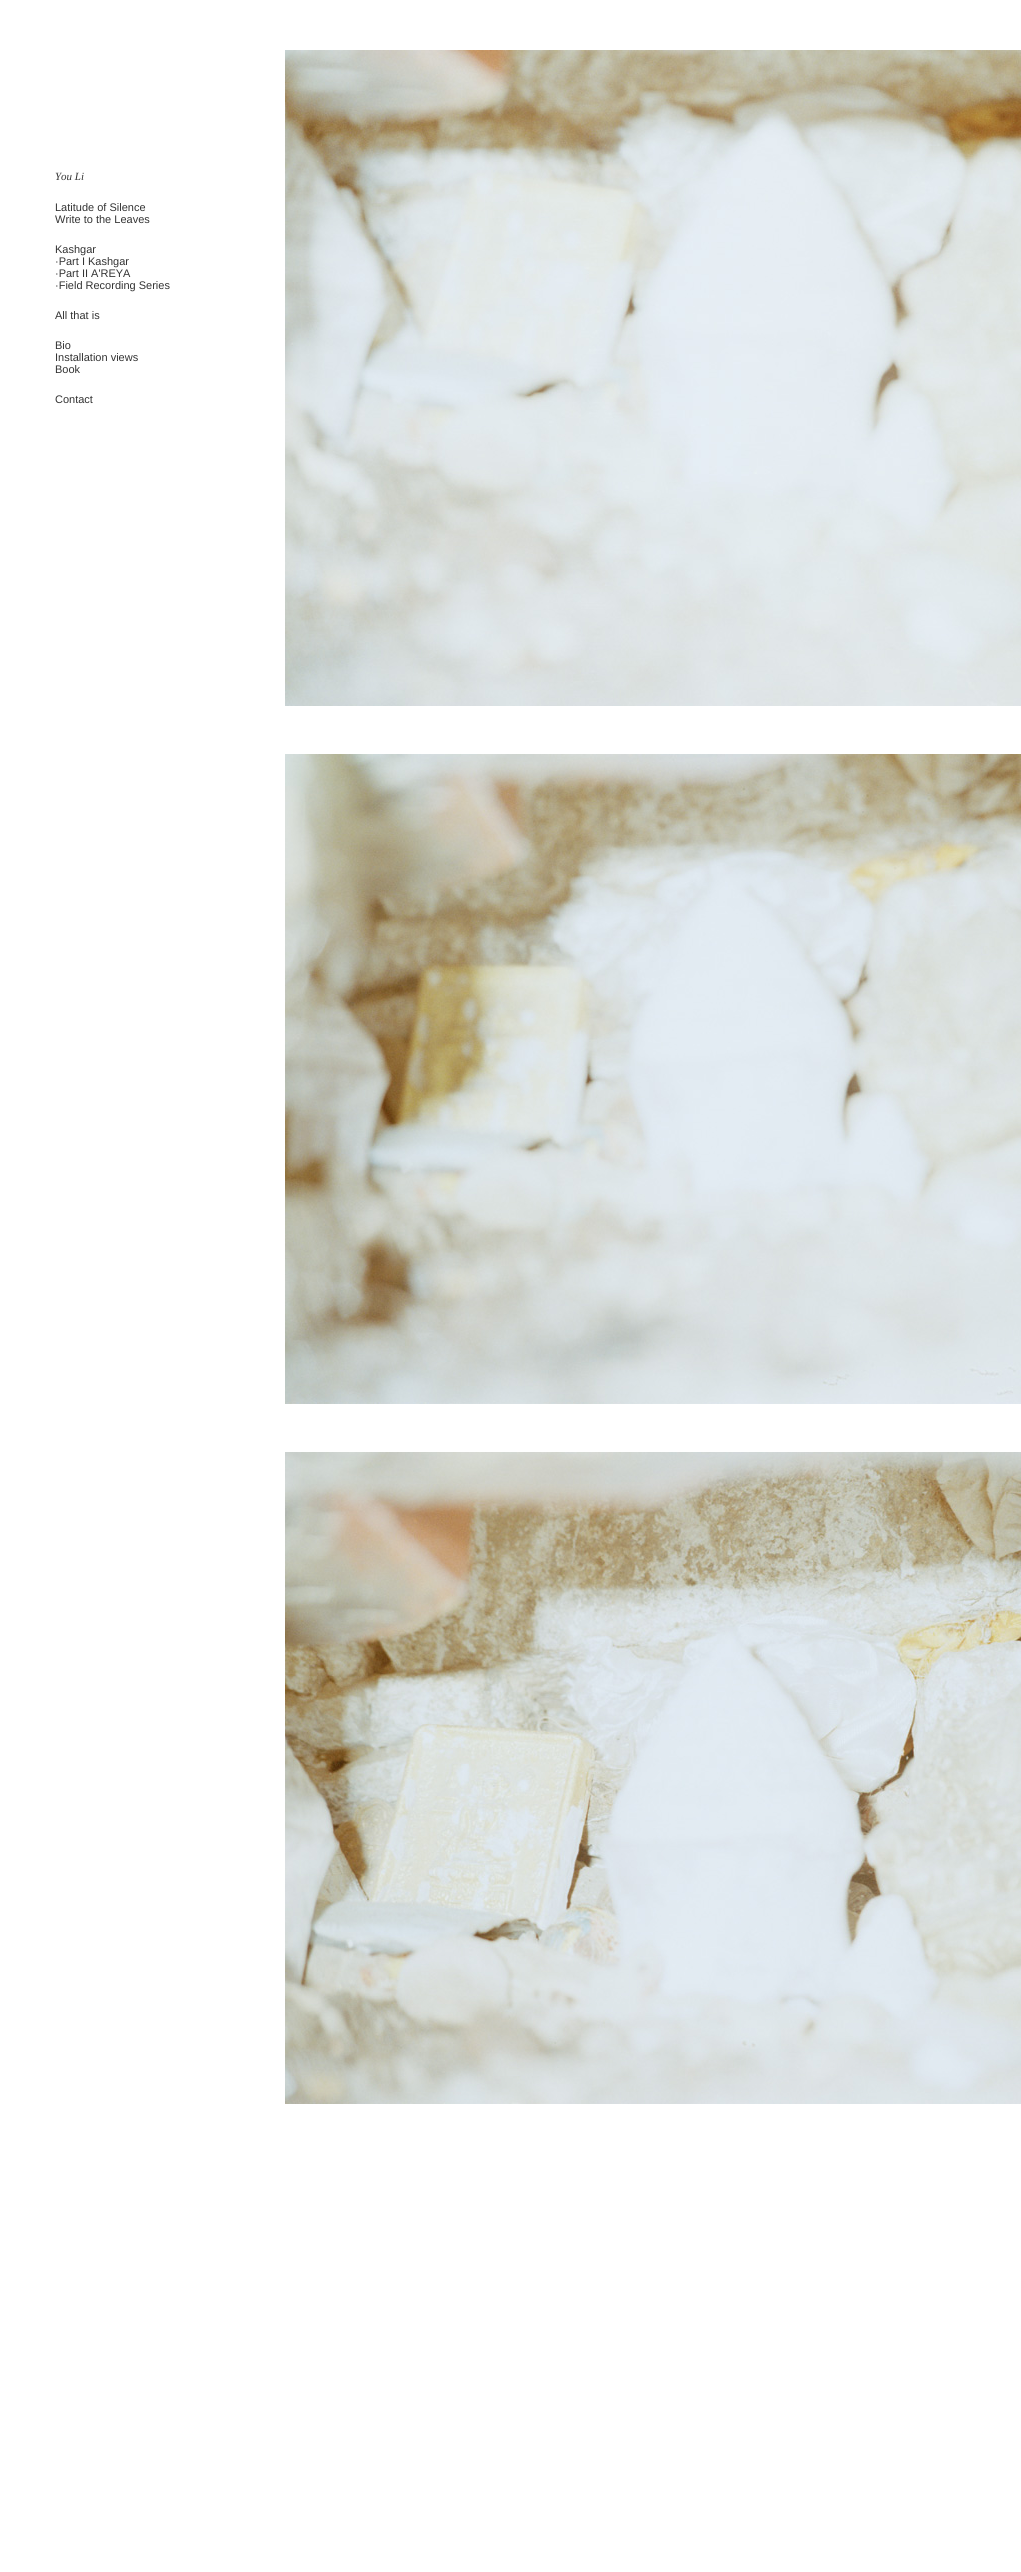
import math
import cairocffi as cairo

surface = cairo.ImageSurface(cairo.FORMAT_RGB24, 1021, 2572)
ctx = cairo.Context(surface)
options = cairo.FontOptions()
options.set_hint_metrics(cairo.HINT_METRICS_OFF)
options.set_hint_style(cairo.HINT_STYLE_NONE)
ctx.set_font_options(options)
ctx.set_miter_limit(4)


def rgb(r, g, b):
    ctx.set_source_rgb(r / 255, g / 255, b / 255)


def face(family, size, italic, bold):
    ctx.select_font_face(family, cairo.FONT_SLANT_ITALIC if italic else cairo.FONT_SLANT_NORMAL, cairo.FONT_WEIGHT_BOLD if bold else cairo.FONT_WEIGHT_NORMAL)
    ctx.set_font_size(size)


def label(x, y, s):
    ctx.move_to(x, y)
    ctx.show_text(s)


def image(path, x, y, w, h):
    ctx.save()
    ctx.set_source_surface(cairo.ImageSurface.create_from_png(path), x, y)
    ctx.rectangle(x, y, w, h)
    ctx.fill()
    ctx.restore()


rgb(255, 255, 255)
ctx.paint()
face('Liberation Serif', 11, 1, 0)
rgb(51, 51, 51)
label(55, 180, 'You Li')
face('Liberation Sans', 11, 0, 0)
label(55, 211, 'Latitude of Silence')
label(55, 223, 'Write to the Leaves')
label(55, 253, 'Kashgar')
label(55, 265, '·Part I Kashgar')
label(55, 277, '·Part II A\'REYA')
label(55, 289, '·Field Recording Series')
label(55, 319, 'All that is')
label(55, 349, 'Bio')
label(55, 361, 'Installation views')
label(55, 373, 'Book')
label(55, 403, 'Contact')
image('image0.png', 285, 50, 736, 656)
image('image1.png', 285, 754, 736, 650)
image('image2.png', 285, 1452, 736, 652)
surface.write_to_png('render.png')
